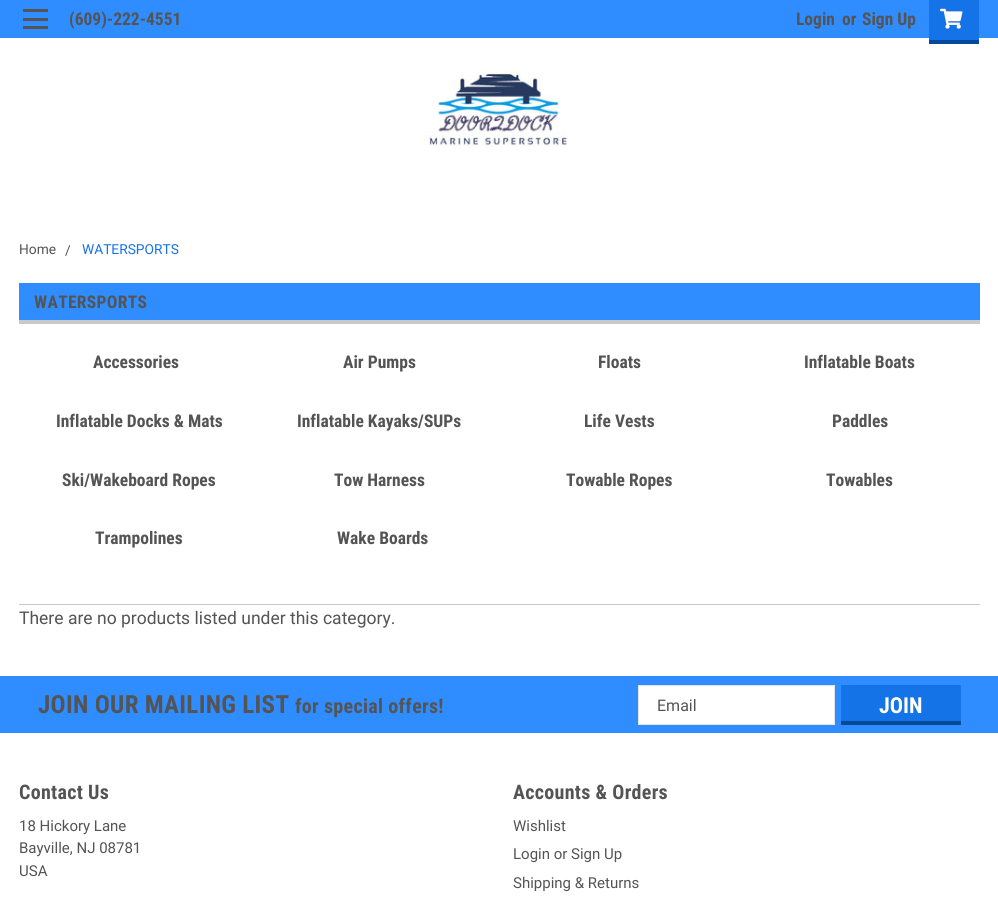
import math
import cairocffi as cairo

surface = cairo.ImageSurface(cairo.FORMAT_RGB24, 998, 911)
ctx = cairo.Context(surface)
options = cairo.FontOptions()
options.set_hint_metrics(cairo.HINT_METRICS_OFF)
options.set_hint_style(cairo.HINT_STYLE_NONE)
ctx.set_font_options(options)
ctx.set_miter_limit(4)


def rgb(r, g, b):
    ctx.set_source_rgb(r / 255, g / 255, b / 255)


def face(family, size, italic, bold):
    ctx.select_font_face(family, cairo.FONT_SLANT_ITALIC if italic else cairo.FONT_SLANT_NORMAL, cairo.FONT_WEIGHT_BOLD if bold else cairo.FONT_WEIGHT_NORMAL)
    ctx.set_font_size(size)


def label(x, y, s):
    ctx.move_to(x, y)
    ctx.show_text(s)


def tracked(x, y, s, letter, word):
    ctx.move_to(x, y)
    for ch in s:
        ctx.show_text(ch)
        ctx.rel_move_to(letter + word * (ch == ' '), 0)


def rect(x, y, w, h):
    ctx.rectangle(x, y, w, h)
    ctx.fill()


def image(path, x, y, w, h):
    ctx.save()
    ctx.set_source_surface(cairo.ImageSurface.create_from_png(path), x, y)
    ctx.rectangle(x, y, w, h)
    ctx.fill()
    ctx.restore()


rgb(255, 255, 255)
ctx.paint()
rgb(48, 141, 255)
rect(0, 0, 998, 38)
rgb(84, 84, 84)
rect(23, 18, 25, 3)
rect(23, 9, 25, 3)
rect(23, 26, 25, 3)
face('Roboto Condensed', 17.5, 0, 1)
label(69, 25, '(609)-222-4551')
label(796, 25, 'Login')
label(842, 25, 'or')
label(862, 25, 'Sign Up')
rgb(20, 115, 230)
rect(929, 0, 50, 40)
rgb(7, 73, 153)
rect(929, 40, 50, 4)
image('image0.png', 940, 8, 23, 21)
image('image1.png', 424, 71, 143, 75)
face('Roboto', 13.75, 0, 0)
rgb(84, 84, 84)
label(19, 254, 'Home')
label(65, 255, '/')
rgb(20, 115, 230)
label(82, 254, 'WATERSPORTS')
rgb(48, 141, 255)
rect(19, 283, 961, 37)
rgb(201, 201, 201)
rect(19, 320, 961, 4)
face('Roboto Condensed', 17.5, 0, 1)
rgb(84, 84, 84)
tracked(34, 308, 'WATERSPORTS', 0.3, 0)
rgb(201, 201, 201)
rect(19, 604, 961, 1)
rgb(84, 84, 84)
label(93, 368, 'Accessories')
label(343, 368, 'Air Pumps')
label(598, 368, 'Floats')
label(804, 368, 'Inflatable Boats')
label(56, 427, 'Inflatable Docks & Mats')
label(297, 427, 'Inflatable Kayaks/SUPs')
label(584, 427, 'Life Vests')
label(832, 427, 'Paddles')
label(62, 486, 'Ski/Wakeboard Ropes')
label(334, 486, 'Tow Harness')
label(566, 486, 'Towable Ropes')
label(826, 486, 'Towables')
label(95, 544, 'Trampolines')
label(337, 544, 'Wake Boards')
face('Roboto', 17.5, 0, 0)
label(19, 624, 'There are no products listed under this category.')
rgb(48, 141, 255)
rect(0, 676, 998, 57)
face('Roboto Condensed', 25, 0, 1)
rgb(84, 84, 84)
tracked(38, 713, 'JOIN OUR MAILING LIST', 0.3, 0)
face('Roboto Condensed', 20, 0, 1)
tracked(295, 713, 'for special offers!', 0.3, 0)
rgb(255, 255, 255)
ctx.rectangle(638.5, 685.5, 196, 39)
ctx.fill_preserve()
rgb(229, 229, 229)
ctx.set_line_width(1)
ctx.stroke()
face('Roboto', 16, 0, 0)
rgb(84, 84, 84)
label(657, 711, 'Email')
rgb(20, 115, 230)
rect(841, 685, 120, 36)
rgb(7, 73, 153)
rect(841, 721, 120, 4)
face('Roboto Condensed', 22, 0, 1)
rgb(255, 255, 255)
label(879, 713, 'JOIN')
face('Roboto Condensed', 20, 0, 1)
rgb(84, 84, 84)
tracked(19, 799, 'Contact Us', 0.3, 0)
face('Roboto', 15, 0, 0)
label(19, 831, '18 Hickory Lane')
label(19, 853, 'Bayville, NJ 08781')
label(19, 876, 'USA')
face('Roboto Condensed', 20, 0, 1)
tracked(513, 799, 'Accounts & Orders', 0.3, 0)
face('Roboto', 15, 0, 0)
label(513, 831, 'Wishlist')
label(513, 859, 'Login or')
label(571, 859, 'Sign Up')
label(513, 888, 'Shipping & Returns')
surface.write_to_png('render.png')
